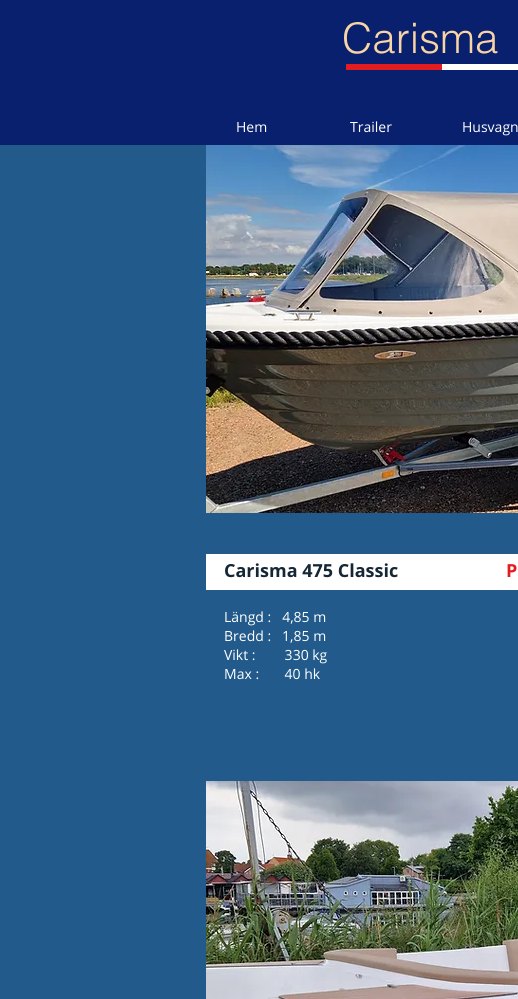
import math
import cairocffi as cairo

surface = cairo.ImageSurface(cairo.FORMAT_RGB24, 518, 999)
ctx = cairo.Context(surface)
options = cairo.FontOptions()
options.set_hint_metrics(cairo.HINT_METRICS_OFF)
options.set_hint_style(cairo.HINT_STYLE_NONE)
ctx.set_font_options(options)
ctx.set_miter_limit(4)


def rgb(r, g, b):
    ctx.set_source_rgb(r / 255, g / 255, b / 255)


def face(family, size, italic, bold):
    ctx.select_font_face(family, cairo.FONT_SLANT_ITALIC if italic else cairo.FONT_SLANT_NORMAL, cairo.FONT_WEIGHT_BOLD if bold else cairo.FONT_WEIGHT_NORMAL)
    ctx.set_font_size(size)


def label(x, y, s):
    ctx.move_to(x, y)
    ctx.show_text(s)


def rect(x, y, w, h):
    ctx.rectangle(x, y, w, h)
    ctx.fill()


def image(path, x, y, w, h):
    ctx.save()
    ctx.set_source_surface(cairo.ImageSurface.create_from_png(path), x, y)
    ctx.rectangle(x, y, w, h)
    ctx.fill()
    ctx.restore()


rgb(9, 32, 110)
ctx.paint()
face('helvetica Light', 42, 0, 0)
rgb(249, 213, 166)
label(342, 53, 'Carisma')
rgb(226, 28, 33)
rect(346, 64, 96, 6)
rgb(255, 255, 255)
rect(442, 64, 76, 6)
face('Open Sans', 14, 0, 0)
label(236, 132, 'Hem')
label(350, 132, 'Trailer')
label(462, 132, 'Husvagn')
rgb(33, 90, 139)
rect(0, 145, 518, 854)
image('image0.png', 206, 145, 312, 368)
rgb(255, 255, 255)
rect(206, 554, 312, 36)
face('Open Sans', 18, 0, 1)
rgb(21, 38, 53)
label(224, 577, 'Carisma 475 Classic')
rgb(226, 28, 33)
label(506, 577, 'P')
face('Open Sans', 14, 0, 0)
rgb(255, 255, 255)
label(224, 622, 'Längd :   4,85 m')
label(224, 641, 'Bredd :   1,85 m')
label(224, 660, 'Vikt :        330 kg')
label(224, 679, 'Max :       40 hk')
image('image1.png', 206, 781, 312, 218)
surface.write_to_png('render.png')
